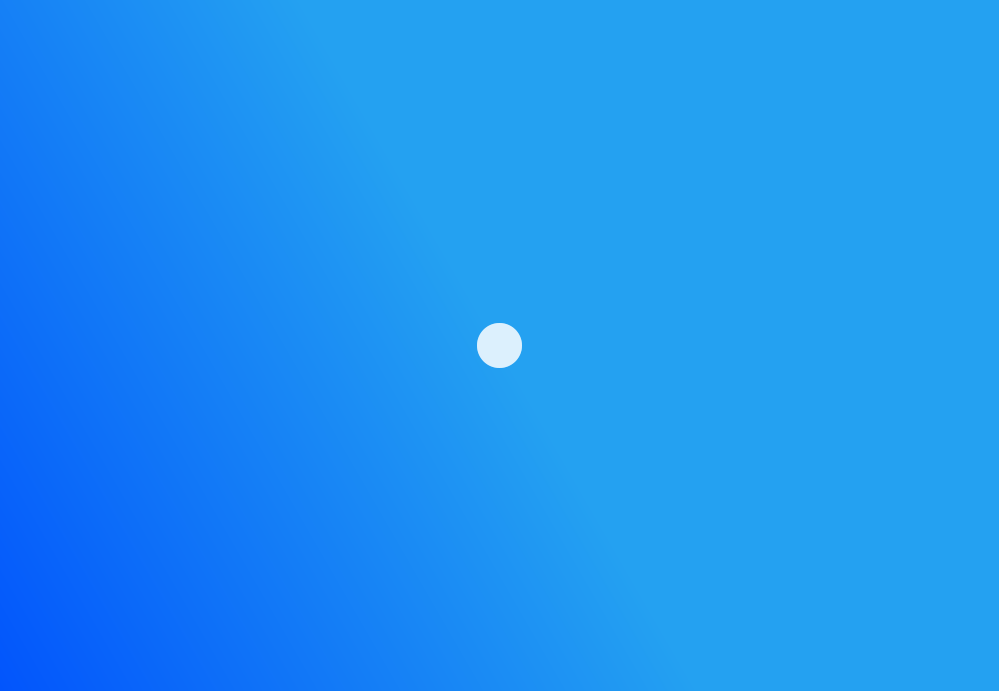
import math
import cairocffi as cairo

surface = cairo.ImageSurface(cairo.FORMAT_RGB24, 999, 691)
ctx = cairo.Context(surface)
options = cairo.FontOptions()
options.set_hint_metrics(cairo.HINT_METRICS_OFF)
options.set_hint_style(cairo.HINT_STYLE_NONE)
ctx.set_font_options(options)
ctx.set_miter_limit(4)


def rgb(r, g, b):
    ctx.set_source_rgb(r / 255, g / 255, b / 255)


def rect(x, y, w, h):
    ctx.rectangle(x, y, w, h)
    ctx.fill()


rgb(255, 255, 255)
ctx.paint()
gradient = cairo.LinearGradient(-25, 648, 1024, 43)
gradient.add_color_stop_rgba(0, 0.008, 0.333, 0.988, 1)
gradient.add_color_stop_rgba(0.5, 0.141, 0.631, 0.945, 1)
ctx.set_source(gradient)
rect(0, 0, 999, 691)
ctx.set_source_rgba(1, 1, 1, 0.6)
ctx.arc(499.5, 345.5, 22.5, 0, 2 * math.pi)
ctx.fill()
ctx.arc(499.5, 345.5, 22.5, 0, 2 * math.pi)
ctx.fill()
surface.write_to_png('render.png')
